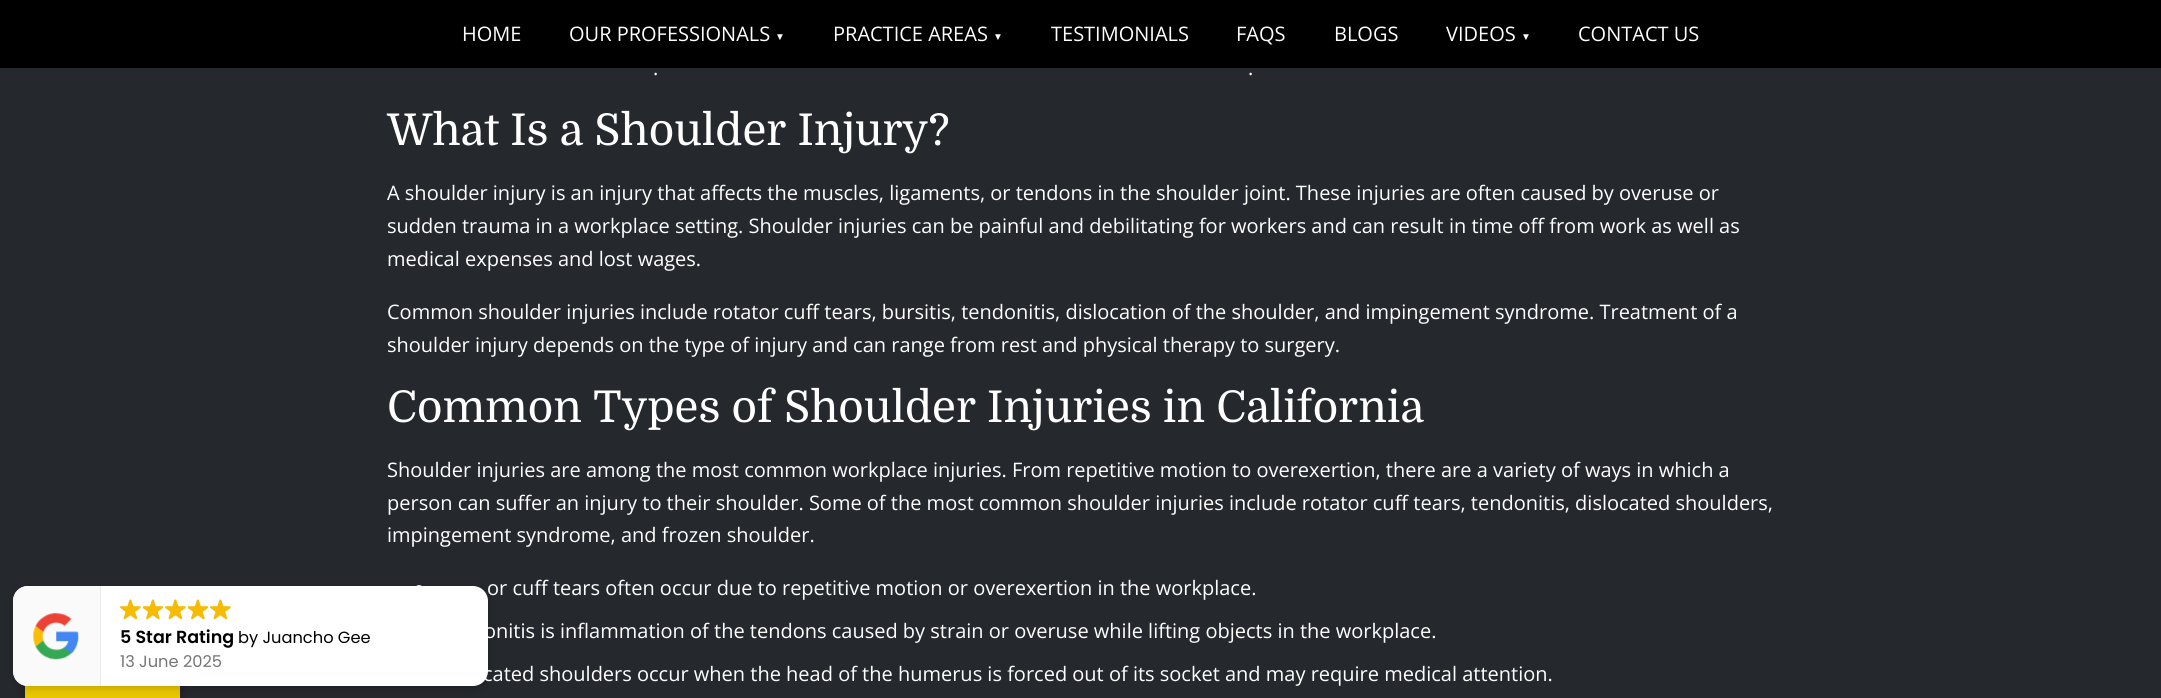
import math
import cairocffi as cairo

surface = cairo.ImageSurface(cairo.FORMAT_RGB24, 2161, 698)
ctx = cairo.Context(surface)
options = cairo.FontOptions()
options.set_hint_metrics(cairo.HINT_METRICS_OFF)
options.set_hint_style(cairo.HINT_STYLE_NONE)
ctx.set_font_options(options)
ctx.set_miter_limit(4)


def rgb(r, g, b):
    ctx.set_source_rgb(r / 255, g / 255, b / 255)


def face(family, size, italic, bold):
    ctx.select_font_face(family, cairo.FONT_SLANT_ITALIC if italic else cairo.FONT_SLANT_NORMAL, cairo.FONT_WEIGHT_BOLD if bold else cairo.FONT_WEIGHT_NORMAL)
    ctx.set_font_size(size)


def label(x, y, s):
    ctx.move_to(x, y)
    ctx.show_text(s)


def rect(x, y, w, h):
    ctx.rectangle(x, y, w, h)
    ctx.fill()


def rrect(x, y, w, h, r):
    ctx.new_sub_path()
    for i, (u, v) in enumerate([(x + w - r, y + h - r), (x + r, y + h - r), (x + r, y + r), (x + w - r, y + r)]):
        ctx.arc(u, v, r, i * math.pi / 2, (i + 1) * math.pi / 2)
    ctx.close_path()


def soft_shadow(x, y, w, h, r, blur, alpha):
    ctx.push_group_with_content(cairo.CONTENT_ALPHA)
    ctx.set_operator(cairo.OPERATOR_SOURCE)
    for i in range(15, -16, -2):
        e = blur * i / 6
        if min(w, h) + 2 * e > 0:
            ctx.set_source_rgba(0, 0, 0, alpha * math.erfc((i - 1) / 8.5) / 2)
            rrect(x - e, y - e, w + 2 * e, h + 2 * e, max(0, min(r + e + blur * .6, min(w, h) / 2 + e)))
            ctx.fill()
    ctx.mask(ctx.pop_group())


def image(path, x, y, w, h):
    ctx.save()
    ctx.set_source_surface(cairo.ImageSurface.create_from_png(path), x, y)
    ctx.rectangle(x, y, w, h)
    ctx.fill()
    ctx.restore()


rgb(37, 40, 45)
ctx.paint()
rgb(0, 0, 0)
rect(0, 0, 2161, 68)
face('Open Sans', 20, 0, 0)
rgb(255, 255, 255)
label(462, 41, 'HOME')
label(569, 41, 'OUR PROFESSIONALS')
face('Liberation Sans', 10, 0, 0)
label(775, 40, '▼')
face('Open Sans', 20, 0, 0)
label(833, 41, 'PRACTICE AREAS')
face('Liberation Sans', 10, 0, 0)
label(993, 40, '▼')
face('Open Sans', 20, 0, 0)
label(1051, 41, 'TESTIMONIALS')
label(1236, 41, 'FAQS')
label(1334, 41, 'BLOGS')
label(1446, 41, 'VIDEOS')
face('Liberation Sans', 10, 0, 0)
label(1521, 40, '▼')
face('Open Sans', 20, 0, 0)
label(1578, 41, 'CONTACT US')
rgb(0, 0, 0)
soft_shadow(25, 655, 155, 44, 0, 5.5, 0.3)
rgb(235, 199, 0)
rect(25, 685, 155, 13)
rgb(255, 255, 255)
ctx.arc(419, 589, 4, 0, 2 * math.pi)
ctx.fill()
rgb(0, 0, 0)
soft_shadow(14, 588, 475, 100, 15, 5, 0.2)
rgb(255, 255, 255)
rrect(13, 586, 475, 100, 15)
ctx.fill()
rgb(250, 250, 250)
ctx.new_path()
ctx.move_to(28, 586)
ctx.line_to(101, 586)
ctx.line_to(101, 686)
ctx.line_to(28, 686)
ctx.curve_to(19.5, 686, 13, 679.5, 13, 671)
ctx.line_to(13, 601)
ctx.curve_to(13, 592.5, 19.5, 586, 28, 586)
ctx.close_path()
ctx.fill()
rgb(234, 234, 234)
rect(100, 586, 1, 100)
image('image0.png', 33, 613, 46, 47)
image('image1.png', 120, 599, 21, 21)
image('image2.png', 143, 599, 21, 21)
image('image1.png', 165, 599, 21, 21)
image('image2.png', 188, 599, 21, 21)
image('image1.png', 210, 599, 21, 21)
face('Poppins SemiBold', 17.5, 0, 0)
rgb(0, 0, 0)
label(120, 643, '5 Star Rating')
face('Poppins', 16.25, 0, 0)
label(238, 643, 'by Juancho Gee')
rgb(118, 118, 118)
label(120, 667, '13 June 2025')
face('Open Sans', 20, 0, 0)
rgb(255, 255, 255)
label(653, 75, '.')
label(1248, 75, '.')
face('Domine', 43.75, 0, 0)
label(387, 145, 'What Is a Shoulder Injury?')
face('Open Sans', 20, 0, 0)
label(387, 200, 'A shoulder injury is an injury that affects the muscles, ligaments, or tendons in the shoulder joint. These injuries are often caused by overuse or')
label(387, 233, 'sudden trauma in a workplace setting. Shoulder injuries can be painful and debilitating for workers and can result in time off from work as well as')
label(387, 266, 'medical expenses and lost wages.')
label(387, 319, 'Common shoulder injuries include rotator cuff tears, bursitis, tendonitis, dislocation of the shoulder, and impingement syndrome. Treatment of a')
label(387, 352, 'shoulder injury depends on the type of injury and can range from rest and physical therapy to surgery.')
face('Domine', 43.75, 0, 0)
label(387, 422, 'Common Types of Shoulder Injuries in California')
face('Open Sans', 20, 0, 0)
label(387, 477, 'Shoulder injuries are among the most common workplace injuries. From repetitive motion to overexertion, there are a variety of ways in which a')
label(387, 510, 'person can suffer an injury to their shoulder. Some of the most common shoulder injuries include rotator cuff tears, tendonitis, dislocated shoulders,')
label(387, 542, 'impingement syndrome, and frozen shoulder.')
label(487, 595, 'or cuff tears often occur due to repetitive motion or overexertion in the workplace.')
label(484, 638, 'onitis is inflammation of the tendons caused by strain or overuse while lifting objects in the workplace.')
label(483, 681, 'cated shoulders occur when the head of the humerus is forced out of its socket and may require medical attention.')
surface.write_to_png('render.png')
